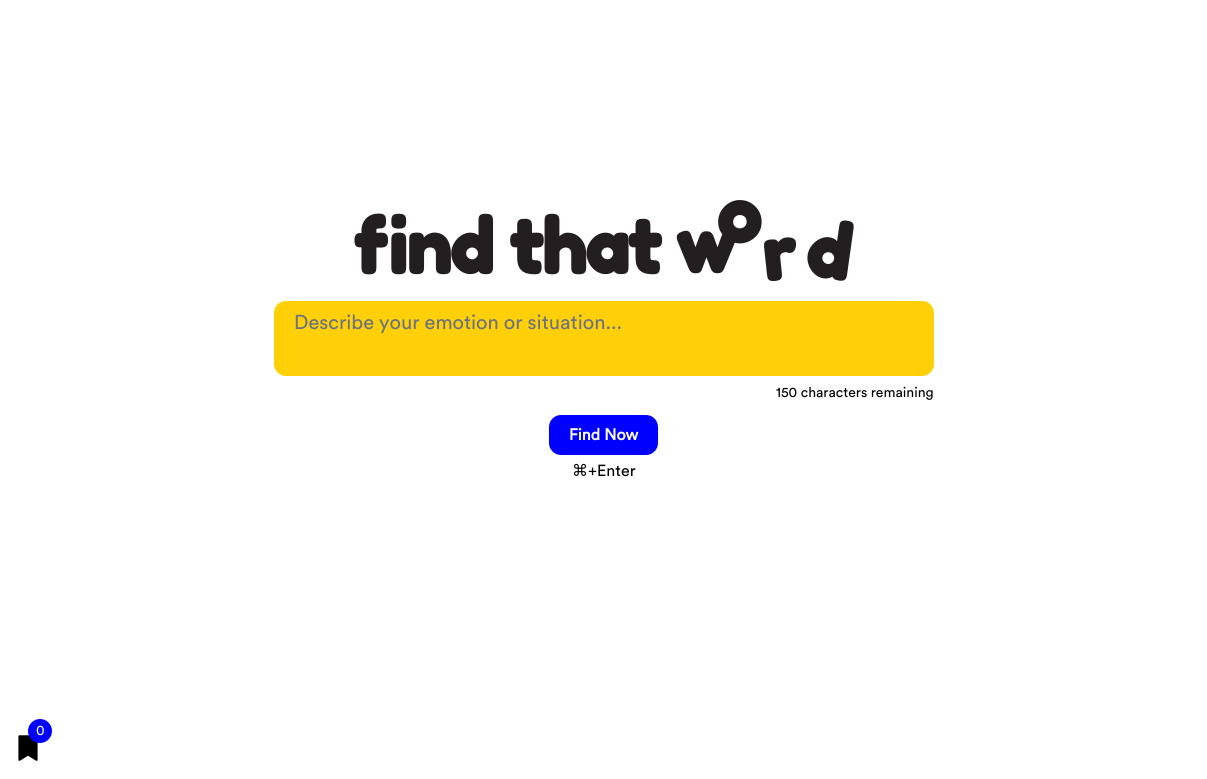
import math
import cairocffi as cairo

surface = cairo.ImageSurface(cairo.FORMAT_RGB24, 1207, 779)
ctx = cairo.Context(surface)
options = cairo.FontOptions()
options.set_hint_metrics(cairo.HINT_METRICS_OFF)
options.set_hint_style(cairo.HINT_STYLE_NONE)
ctx.set_font_options(options)
ctx.set_miter_limit(4)


def rgb(r, g, b):
    ctx.set_source_rgb(r / 255, g / 255, b / 255)


def face(family, size, italic, bold):
    ctx.select_font_face(family, cairo.FONT_SLANT_ITALIC if italic else cairo.FONT_SLANT_NORMAL, cairo.FONT_WEIGHT_BOLD if bold else cairo.FONT_WEIGHT_NORMAL)
    ctx.set_font_size(size)


def label(x, y, s):
    ctx.move_to(x, y)
    ctx.show_text(s)


def rrect(x, y, w, h, r):
    ctx.new_sub_path()
    for i, (u, v) in enumerate([(x + w - r, y + h - r), (x + r, y + h - r), (x + r, y + r), (x + w - r, y + r)]):
        ctx.arc(u, v, r, i * math.pi / 2, (i + 1) * math.pi / 2)
    ctx.close_path()


def image(path, x, y, w, h):
    ctx.save()
    ctx.set_source_surface(cairo.ImageSurface.create_from_png(path), x, y)
    ctx.rectangle(x, y, w, h)
    ctx.fill()
    ctx.restore()


rgb(255, 255, 255)
ctx.paint()
image('image0.png', 354, 200, 500, 81)
rgb(255, 208, 8)
rrect(274, 301, 660, 75, 12)
ctx.fill()
face('Circular', 20, 0, 0)
rgb(107, 114, 128)
label(294, 329, 'Describe your emotion or situation...')
face('Circular', 14, 0, 0)
rgb(0, 0, 0)
label(776, 397, '150 characters remaining')
rgb(0, 0, 255)
rrect(549, 415, 109, 40, 12)
ctx.fill()
face('Circular', 16, 0, 1)
rgb(255, 255, 255)
label(569, 440, 'Find Now')
face('DejaVu Sans', 16, 0, 0)
rgb(0, 0, 0)
label(572, 476, '⌘')
face('Circular', 16, 0, 0)
label(588, 476, '+Enter')
image('image1.png', 18, 735, 20, 26)
rgb(0, 0, 255)
ctx.arc(40, 731, 12, 0, 2 * math.pi)
ctx.fill()
face('Circular', 14, 0, 0)
rgb(255, 255, 255)
label(36, 735, '0')
surface.write_to_png('render.png')
